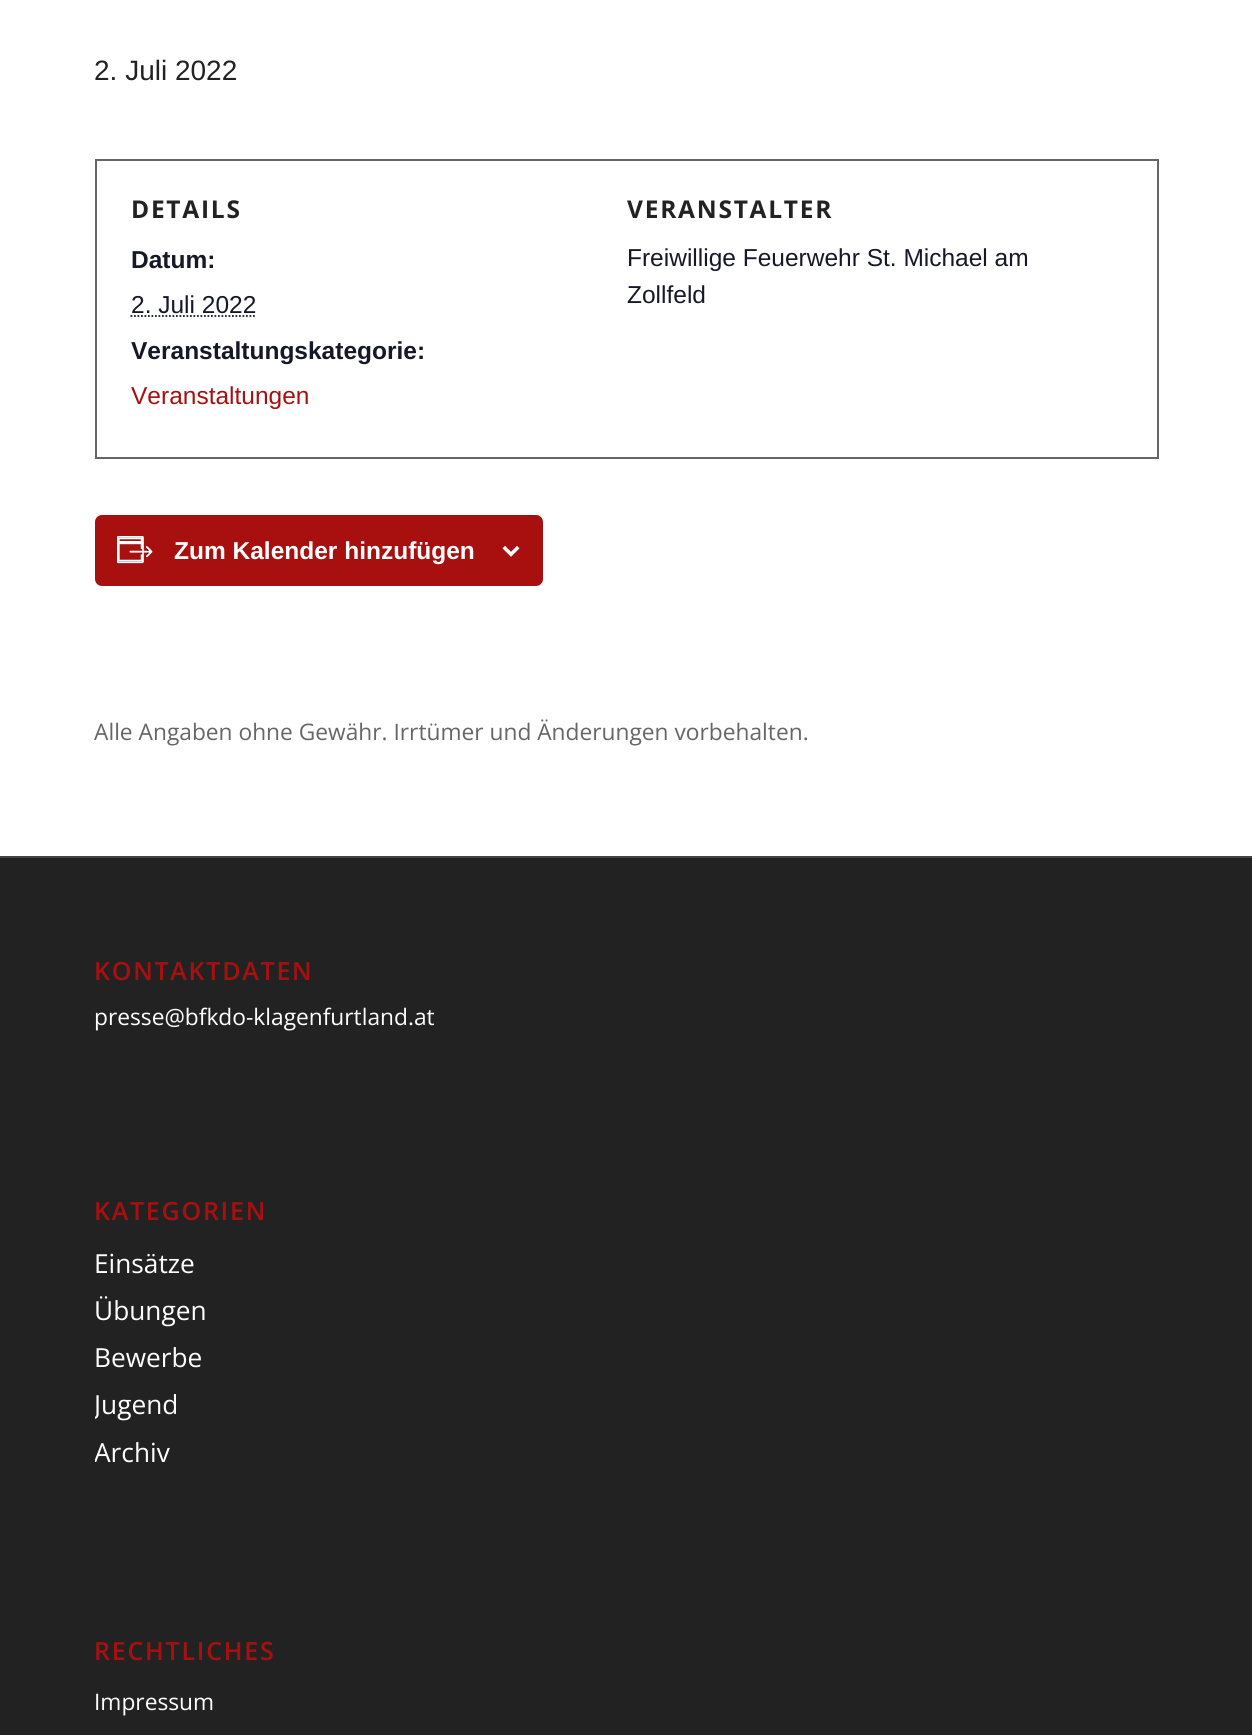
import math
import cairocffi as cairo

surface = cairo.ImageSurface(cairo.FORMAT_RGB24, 1252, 1735)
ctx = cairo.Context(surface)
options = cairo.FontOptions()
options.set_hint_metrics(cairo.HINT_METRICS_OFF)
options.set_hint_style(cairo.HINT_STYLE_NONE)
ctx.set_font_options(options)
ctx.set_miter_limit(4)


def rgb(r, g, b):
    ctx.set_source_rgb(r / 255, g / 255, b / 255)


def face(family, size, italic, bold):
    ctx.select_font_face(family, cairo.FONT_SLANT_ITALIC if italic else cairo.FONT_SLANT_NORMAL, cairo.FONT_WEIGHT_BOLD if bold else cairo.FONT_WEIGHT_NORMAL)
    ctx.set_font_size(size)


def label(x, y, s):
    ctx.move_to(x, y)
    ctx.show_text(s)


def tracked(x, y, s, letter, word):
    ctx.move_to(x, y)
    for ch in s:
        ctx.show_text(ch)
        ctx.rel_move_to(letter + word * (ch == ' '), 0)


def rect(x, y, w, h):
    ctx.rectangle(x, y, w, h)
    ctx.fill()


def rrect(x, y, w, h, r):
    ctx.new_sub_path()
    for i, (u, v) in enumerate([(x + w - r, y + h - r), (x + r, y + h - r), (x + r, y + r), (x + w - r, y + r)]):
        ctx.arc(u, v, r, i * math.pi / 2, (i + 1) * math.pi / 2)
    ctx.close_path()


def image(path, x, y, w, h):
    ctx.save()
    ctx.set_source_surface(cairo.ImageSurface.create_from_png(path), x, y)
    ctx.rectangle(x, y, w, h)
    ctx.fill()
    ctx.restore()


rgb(255, 255, 255)
ctx.paint()
face('Liberation Sans', 28, 0, 0)
rgb(34, 34, 34)
label(94, 80, '2. Juli 2022')
ctx.rectangle(96, 160, 1062, 298)
rgb(102, 102, 102)
ctx.stroke()
face('Open Sans', 24.5, 0, 1)
rgb(34, 34, 34)
tracked(131, 218, 'DETAILS', 1.75, 0)
face('Liberation Sans', 24.5, 0, 1)
rgb(20, 24, 39)
label(131, 268, 'Datum:')
face('Liberation Sans', 24.5, 0, 0)
label(131, 313, '2. Juli 2022')
ctx.new_path()
ctx.move_to(130.5, 316)
ctx.line_to(256, 316)
ctx.set_line_width(1.8)
ctx.set_dash([1.75, 1.75])
ctx.stroke()
face('Liberation Sans', 24.5, 0, 1)
label(131, 359, 'Veranstaltungskategorie:')
face('Liberation Sans', 24.5, 0, 0)
rgb(168, 16, 16)
label(131, 404, 'Veranstaltungen')
face('Open Sans', 24.5, 0, 1)
rgb(34, 34, 34)
tracked(627, 218, 'VERANSTALTER', 1.75, 0)
face('Liberation Sans', 24.5, 0, 0)
rgb(20, 24, 39)
label(627, 266, 'Freiwillige Feuerwehr St. Michael am')
label(627, 303, 'Zollfeld')
rgb(168, 16, 16)
rrect(96, 516, 446, 69, 6)
ctx.fill_preserve()
ctx.set_line_width(2)
ctx.set_dash([])
ctx.stroke()
image('image0.png', 117, 536, 36, 28)
face('Liberation Sans', 24.5, 0, 1)
rgb(255, 255, 255)
label(174, 559, 'Zum Kalender hinzufügen')
image('image1.png', 502, 546, 18, 11)
face('Open Sans', 22.75, 0, 0)
rgb(102, 102, 102)
label(94, 740, 'Alle Angaben ohne Gewähr. Irrtümer und Änderungen vorbehalten.')
rgb(34, 34, 34)
rect(0, 858, 1252, 877)
rgb(68, 68, 68)
rect(0, 856, 1252, 2)
face('Open Sans SemiBold', 25, 0, 0)
rgb(168, 16, 16)
tracked(94, 980, 'KONTAKTDATEN', 1.75, 0)
face('Open Sans', 22.75, 0, 0)
rgb(255, 255, 255)
label(94, 1025, 'presse@bfkdo-klagenfurtland.at')
face('Open Sans SemiBold', 25, 0, 0)
rgb(168, 16, 16)
tracked(94, 1220, 'KATEGORIEN', 1.75, 0)
face('Open Sans', 26.25, 0, 0)
rgb(255, 255, 255)
label(94, 1273, 'Einsätze')
label(94, 1320, 'Übungen')
label(94, 1367, 'Bewerbe')
ctx.save()
ctx.rectangle(95, 1239, 1064, 236)
ctx.clip()
label(94, 1414, 'Jugend')
label(94, 1462, 'Archiv')
ctx.restore()
face('Open Sans SemiBold', 25, 0, 0)
rgb(168, 16, 16)
tracked(94, 1660, 'RECHTLICHES', 1.75, 0)
face('Open Sans', 22.75, 0, 0)
rgb(255, 255, 255)
label(94, 1710, 'Impressum')
surface.write_to_png('render.png')
